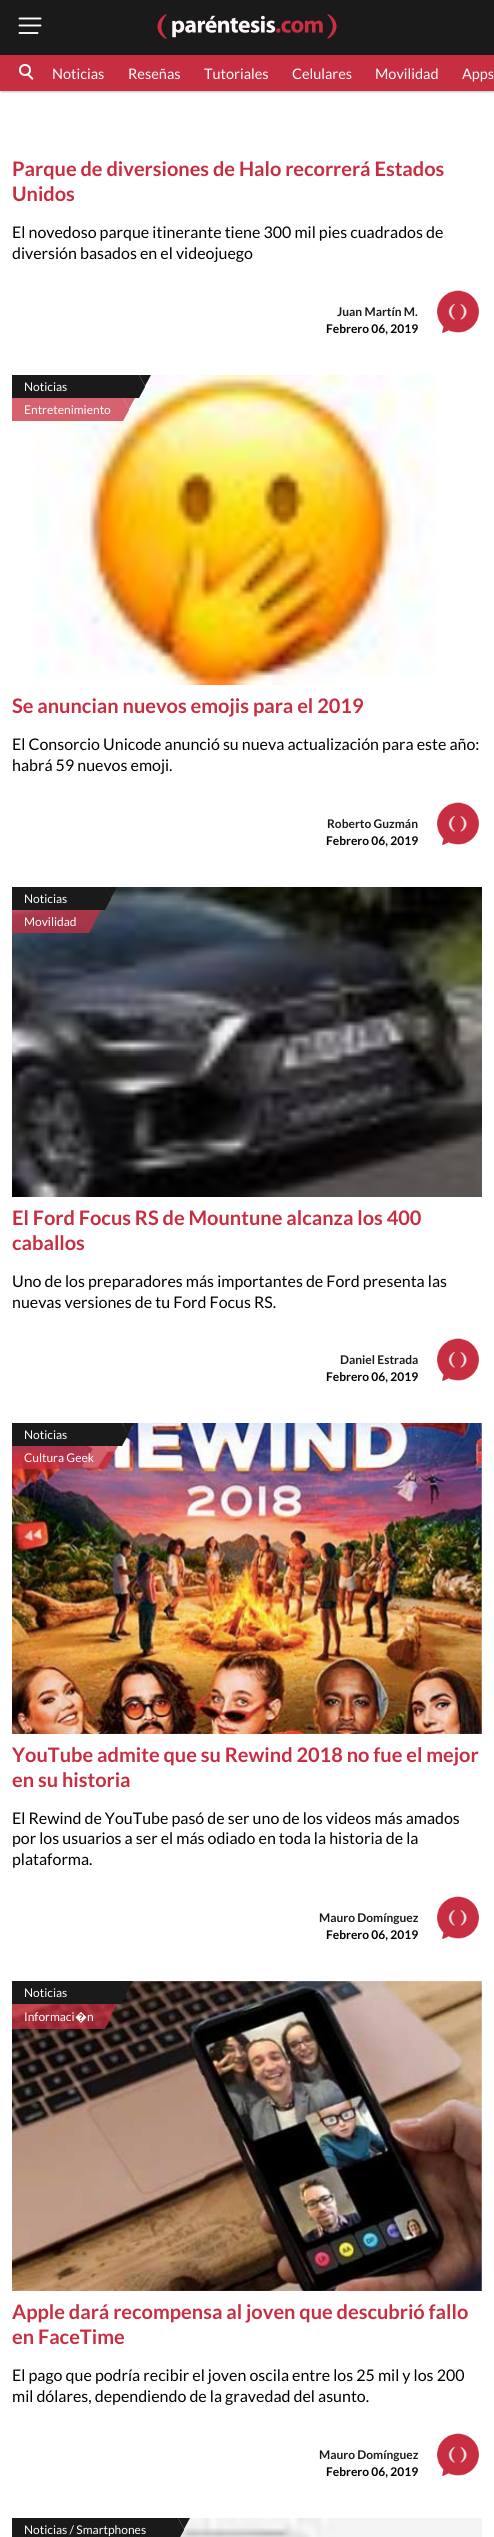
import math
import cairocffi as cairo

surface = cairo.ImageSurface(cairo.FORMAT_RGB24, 494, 2537)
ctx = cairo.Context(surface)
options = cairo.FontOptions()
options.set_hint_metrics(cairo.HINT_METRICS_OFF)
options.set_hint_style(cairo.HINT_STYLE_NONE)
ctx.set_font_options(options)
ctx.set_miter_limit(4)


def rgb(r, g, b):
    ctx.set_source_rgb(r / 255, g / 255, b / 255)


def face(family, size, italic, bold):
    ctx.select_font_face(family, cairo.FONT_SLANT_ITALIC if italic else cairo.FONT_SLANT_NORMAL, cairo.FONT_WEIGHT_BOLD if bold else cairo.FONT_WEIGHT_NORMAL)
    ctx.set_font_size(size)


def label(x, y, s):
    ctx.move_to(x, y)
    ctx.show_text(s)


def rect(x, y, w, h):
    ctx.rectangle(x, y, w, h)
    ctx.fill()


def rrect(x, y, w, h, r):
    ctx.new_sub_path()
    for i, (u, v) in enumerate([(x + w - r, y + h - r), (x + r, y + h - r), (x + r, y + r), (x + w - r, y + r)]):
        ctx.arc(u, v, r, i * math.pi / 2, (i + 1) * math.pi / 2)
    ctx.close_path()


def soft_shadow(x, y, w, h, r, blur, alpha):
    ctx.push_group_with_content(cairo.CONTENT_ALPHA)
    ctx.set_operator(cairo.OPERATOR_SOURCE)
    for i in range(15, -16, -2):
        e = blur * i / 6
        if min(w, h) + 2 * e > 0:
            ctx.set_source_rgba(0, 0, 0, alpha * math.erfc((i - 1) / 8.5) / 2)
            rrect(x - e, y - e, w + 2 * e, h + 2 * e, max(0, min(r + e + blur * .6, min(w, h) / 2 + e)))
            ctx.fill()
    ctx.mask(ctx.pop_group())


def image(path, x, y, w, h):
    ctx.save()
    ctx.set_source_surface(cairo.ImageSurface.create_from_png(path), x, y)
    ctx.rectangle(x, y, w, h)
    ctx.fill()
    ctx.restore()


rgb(255, 255, 255)
ctx.paint()
rgb(26, 26, 26)
rect(0, 0, 494, 55)
ctx.new_path()
ctx.move_to(19.5, 18.5)
ctx.line_to(40.5, 18.5)
ctx.move_to(19.5, 25.5)
ctx.line_to(40.5, 25.5)
ctx.move_to(19.5, 33)
ctx.line_to(37.5, 33)
rgb(255, 255, 255)
ctx.set_line_width(1.9)
ctx.set_line_cap(cairo.LINE_CAP_ROUND)
ctx.stroke()
image('image0.png', 157, 14, 180, 25)
rgb(0, 0, 0)
soft_shadow(1, 56, 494, 36, 0, 1, 0.25)
rgb(200, 46, 65)
rect(0, 55, 494, 36)
ctx.arc(25, 70, 5, 0, 2 * math.pi)
rgb(255, 255, 255)
ctx.set_line_width(2)
ctx.set_line_cap(cairo.LINE_CAP_BUTT)
ctx.stroke()
ctx.new_path()
ctx.move_to(27.5, 75.5)
ctx.line_to(29, 74)
ctx.line_to(31.5, 76.5)
ctx.line_to(30.5, 78)
ctx.close_path()
ctx.fill()
ctx.new_path()
ctx.move_to(29.5, 77.5)
ctx.line_to(31, 76)
ctx.line_to(33.5, 78.5)
ctx.line_to(32.5, 80)
ctx.close_path()
ctx.fill()
face('Lato', 14.5, 0, 0)
label(52, 79, 'Noticias')
label(128, 79, 'Reseñas')
label(204, 79, 'Tutoriales')
label(292, 79, 'Celulares')
label(375, 79, 'Movilidad')
label(462, 79, 'Apps')
face('Lato', 20, 0, 1)
rgb(200, 46, 65)
label(12, 176, 'Parque de diversiones de Halo recorrerá Estados')
label(12, 201, 'Unidos')
face('Lato', 16, 0, 0)
rgb(0, 0, 0)
label(12, 238, 'El novedoso parque itinerante tiene 300 mil pies cuadrados de')
label(12, 259, 'diversión basados en el videojuego')
face('Lato', 12, 0, 1)
rgb(26, 26, 26)
label(337, 316, 'Juan Martín M.')
image('image1.png', 437, 290, 42, 43)
rgb(0, 0, 0)
label(326, 333, 'Febrero 06, 2019')
image('image2.png', 33, 375, 405, 310)
rgb(26, 26, 26)
rect(12, 375, 127, 23)
face('Lato', 12, 0, 0)
rgb(255, 255, 255)
label(24, 391, 'Noticias')
rgb(26, 26, 26)
ctx.new_path()
ctx.move_to(139, 375)
ctx.line_to(151, 375)
ctx.line_to(145, 386)
ctx.close_path()
ctx.fill()
ctx.new_path()
ctx.move_to(139, 398)
ctx.line_to(139, 375)
ctx.line_to(145, 386)
ctx.line_to(145, 387)
ctx.close_path()
ctx.fill()
ctx.set_source_rgba(0.784, 0.18, 0.255, 0.75)
rect(12, 398, 111, 23)
rgb(255, 255, 255)
label(24, 414, 'Entretenimiento')
ctx.set_source_rgba(0.784, 0.18, 0.255, 0.75)
ctx.new_path()
ctx.move_to(123, 398)
ctx.line_to(135, 398)
ctx.line_to(129, 409)
ctx.close_path()
ctx.fill()
ctx.new_path()
ctx.move_to(123, 421)
ctx.line_to(123, 398)
ctx.line_to(129, 409)
ctx.line_to(129, 410)
ctx.close_path()
ctx.fill()
face('Lato', 20, 0, 1)
rgb(200, 46, 65)
label(12, 713, 'Se anuncian nuevos emojis para el 2019')
face('Lato', 16, 0, 0)
rgb(0, 0, 0)
label(12, 750, 'El Consorcio Unicode anunció su nueva actualización para este año:')
label(12, 771, 'habrá 59 nuevos emoji.')
face('Lato', 12, 0, 1)
rgb(26, 26, 26)
label(327, 828, 'Roberto Guzmán')
image('image1.png', 437, 802, 42, 43)
rgb(0, 0, 0)
label(326, 845, 'Febrero 06, 2019')
image('image3.png', 12, 887, 470, 310)
rgb(26, 26, 26)
rect(12, 887, 93, 23)
face('Lato', 12, 0, 0)
rgb(255, 255, 255)
label(24, 903, 'Noticias')
rgb(26, 26, 26)
ctx.new_path()
ctx.move_to(105, 887)
ctx.line_to(117, 887)
ctx.line_to(111, 898)
ctx.close_path()
ctx.fill()
ctx.new_path()
ctx.move_to(105, 910)
ctx.line_to(105, 887)
ctx.line_to(111, 898)
ctx.line_to(111, 899)
ctx.close_path()
ctx.fill()
ctx.set_source_rgba(0.784, 0.18, 0.255, 0.75)
rect(12, 910, 77, 23)
rgb(255, 255, 255)
label(24, 926, 'Movilidad')
ctx.set_source_rgba(0.784, 0.18, 0.255, 0.75)
ctx.new_path()
ctx.move_to(89, 910)
ctx.line_to(101, 910)
ctx.line_to(95, 921)
ctx.close_path()
ctx.fill()
ctx.new_path()
ctx.move_to(89, 933)
ctx.line_to(89, 910)
ctx.line_to(95, 921)
ctx.line_to(95, 922)
ctx.close_path()
ctx.fill()
face('Lato', 20, 0, 1)
rgb(200, 46, 65)
label(12, 1225, 'El Ford Focus RS de Mountune alcanza los 400')
label(12, 1250, 'caballos')
face('Lato', 16, 0, 0)
rgb(0, 0, 0)
label(12, 1287, 'Uno de los preparadores más importantes de Ford presenta las')
label(12, 1308, 'nuevas versiones de tu Ford Focus RS.')
face('Lato', 12, 0, 1)
rgb(26, 26, 26)
label(340, 1364, 'Daniel Estrada')
image('image1.png', 437, 1338, 42, 43)
rgb(0, 0, 0)
label(326, 1381, 'Febrero 06, 2019')
image('image4.png', 12, 1423, 470, 311)
rgb(26, 26, 26)
rect(12, 1423, 110, 23)
face('Lato', 12, 0, 0)
rgb(255, 255, 255)
label(24, 1439, 'Noticias')
rgb(26, 26, 26)
ctx.new_path()
ctx.move_to(122, 1423)
ctx.line_to(134, 1423)
ctx.line_to(128, 1434)
ctx.close_path()
ctx.fill()
ctx.new_path()
ctx.move_to(122, 1446)
ctx.line_to(122, 1423)
ctx.line_to(128, 1434)
ctx.line_to(128, 1435)
ctx.close_path()
ctx.fill()
ctx.set_source_rgba(0.784, 0.18, 0.255, 0.75)
rect(12, 1446, 94, 23)
rgb(255, 255, 255)
label(24, 1462, 'Cultura Geek')
ctx.set_source_rgba(0.784, 0.18, 0.255, 0.75)
ctx.new_path()
ctx.move_to(106, 1446)
ctx.line_to(118, 1446)
ctx.line_to(112, 1457)
ctx.close_path()
ctx.fill()
ctx.new_path()
ctx.move_to(106, 1469)
ctx.line_to(106, 1446)
ctx.line_to(112, 1457)
ctx.line_to(112, 1458)
ctx.close_path()
ctx.fill()
face('Lato', 20, 0, 1)
rgb(200, 46, 65)
label(12, 1762, 'YouTube admite que su Rewind 2018 no fue el mejor')
label(12, 1787, 'en su historia')
face('Lato', 16, 0, 0)
rgb(0, 0, 0)
label(12, 1824, 'El Rewind de YouTube pasó de ser uno de los videos más amados')
label(12, 1844, 'por los usuarios a ser el más odiado en toda la historia de la')
label(12, 1865, 'plataforma.')
face('Lato', 12, 0, 1)
rgb(26, 26, 26)
label(319, 1922, 'Mauro Domínguez')
image('image1.png', 437, 1896, 42, 43)
rgb(0, 0, 0)
label(326, 1939, 'Febrero 06, 2019')
image('image5.png', 12, 1981, 470, 310)
rgb(26, 26, 26)
rect(12, 1981, 109, 23)
face('Lato', 12, 0, 0)
rgb(255, 255, 255)
label(24, 1997, 'Noticias')
rgb(26, 26, 26)
ctx.new_path()
ctx.move_to(121, 1981)
ctx.line_to(133, 1981)
ctx.line_to(127, 1992)
ctx.close_path()
ctx.fill()
ctx.new_path()
ctx.move_to(121, 2004)
ctx.line_to(121, 1981)
ctx.line_to(127, 1992)
ctx.line_to(127, 1993)
ctx.close_path()
ctx.fill()
ctx.set_source_rgba(0.784, 0.18, 0.255, 0.75)
rect(12, 2004, 93, 25)
rgb(255, 255, 255)
label(24, 2021, 'Informaci')
face('Noto Sans', 12, 0, 0)
label(75, 2021, '�')
face('Lato', 12, 0, 0)
label(87, 2021, 'n')
ctx.set_source_rgba(0.784, 0.18, 0.255, 0.75)
ctx.new_path()
ctx.move_to(105, 2004)
ctx.line_to(117, 2004)
ctx.line_to(111, 2015)
ctx.close_path()
ctx.fill()
ctx.new_path()
ctx.move_to(105, 2029)
ctx.line_to(105, 2004)
ctx.line_to(111, 2015)
ctx.line_to(111, 2018)
ctx.close_path()
ctx.fill()
face('Lato', 20, 0, 1)
rgb(200, 46, 65)
label(12, 2319, 'Apple dará recompensa al joven que descubrió fallo')
label(12, 2344, 'en FaceTime')
face('Lato', 16, 0, 0)
rgb(0, 0, 0)
label(12, 2381, 'El pago que podría recibir el joven oscila entre los 25 mil y los 200')
label(12, 2402, 'mil dólares, dependiendo de la gravedad del asunto.')
face('Lato', 12, 0, 1)
rgb(26, 26, 26)
label(319, 2459, 'Mauro Domínguez')
image('image1.png', 437, 2433, 42, 43)
rgb(0, 0, 0)
label(326, 2476, 'Febrero 06, 2019')
rgb(26, 26, 26)
rect(12, 2518, 166, 19)
face('Lato', 12, 0, 0)
rgb(255, 255, 255)
label(24, 2534, 'Noticias / Smartphones')
image('image6.png', 178, 2518, 304, 19)
rgb(26, 26, 26)
ctx.new_path()
ctx.move_to(178, 2518)
ctx.line_to(190, 2518)
ctx.line_to(184, 2529)
ctx.close_path()
ctx.fill()
ctx.new_path()
ctx.move_to(178, 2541)
ctx.line_to(178, 2518)
ctx.line_to(184, 2529)
ctx.line_to(184, 2530)
ctx.close_path()
ctx.fill()
surface.write_to_png('render.png')
